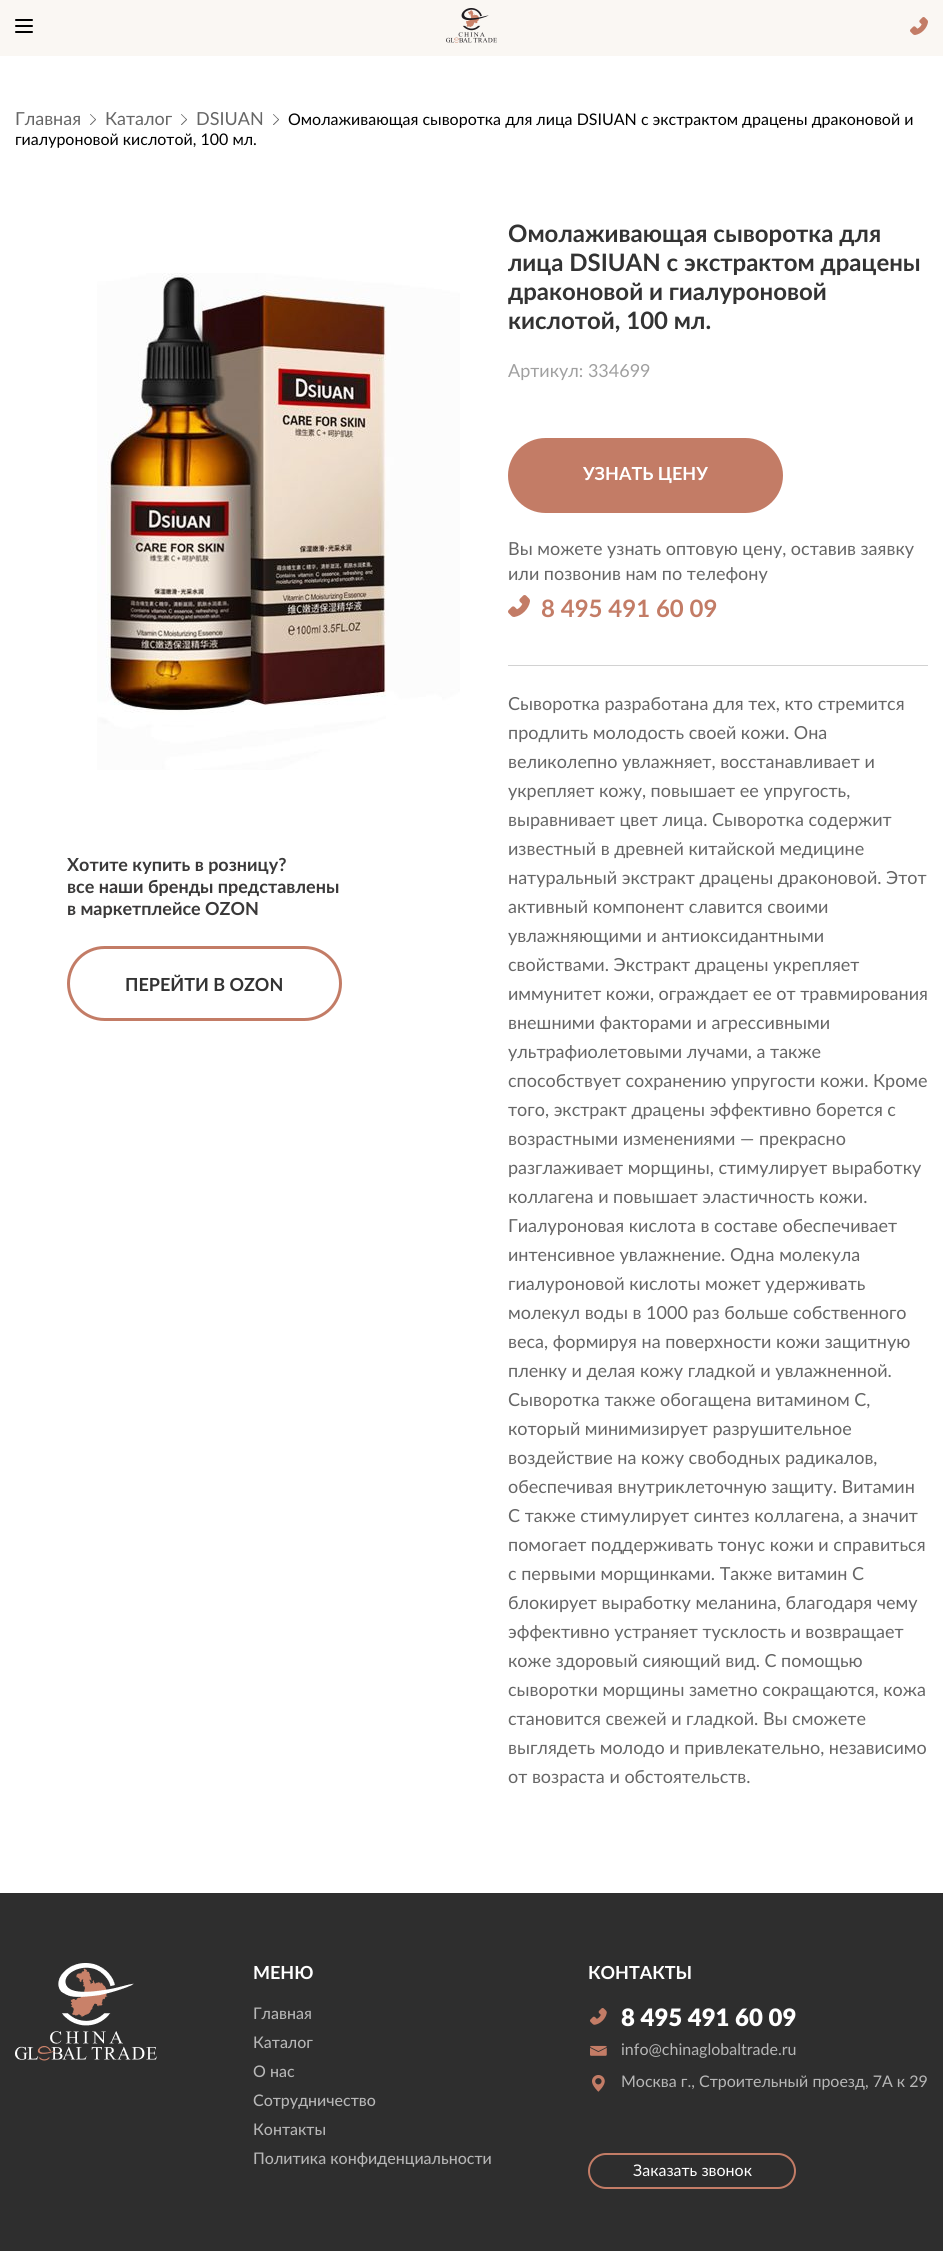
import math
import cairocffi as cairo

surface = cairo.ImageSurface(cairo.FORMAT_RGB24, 943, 2251)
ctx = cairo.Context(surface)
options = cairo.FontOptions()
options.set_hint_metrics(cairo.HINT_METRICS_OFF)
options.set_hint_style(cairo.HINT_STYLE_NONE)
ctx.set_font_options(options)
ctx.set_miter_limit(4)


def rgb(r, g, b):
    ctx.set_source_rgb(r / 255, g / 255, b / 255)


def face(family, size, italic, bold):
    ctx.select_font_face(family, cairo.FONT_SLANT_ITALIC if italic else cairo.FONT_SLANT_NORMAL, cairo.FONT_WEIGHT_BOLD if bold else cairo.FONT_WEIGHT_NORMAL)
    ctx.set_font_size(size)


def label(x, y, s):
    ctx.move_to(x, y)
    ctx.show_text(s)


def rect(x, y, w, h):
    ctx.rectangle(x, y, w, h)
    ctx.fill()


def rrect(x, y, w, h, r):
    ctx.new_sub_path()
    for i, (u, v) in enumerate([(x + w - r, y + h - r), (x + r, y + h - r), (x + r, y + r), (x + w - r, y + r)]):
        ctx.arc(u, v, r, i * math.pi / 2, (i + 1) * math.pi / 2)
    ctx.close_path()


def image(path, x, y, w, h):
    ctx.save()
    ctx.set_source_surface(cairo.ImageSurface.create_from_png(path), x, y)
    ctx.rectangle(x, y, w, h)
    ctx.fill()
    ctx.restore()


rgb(255, 255, 255)
ctx.paint()
rgb(250, 247, 243)
rect(0, 0, 943, 56)
ctx.new_path()
ctx.move_to(16, 32)
ctx.line_to(32, 32)
ctx.move_to(16, 20)
ctx.line_to(32, 20)
ctx.close_path()
ctx.move_to(16, 26)
ctx.line_to(32, 26)
ctx.close_path()
rgb(0, 0, 0)
ctx.set_line_cap(cairo.LINE_CAP_ROUND)
ctx.set_line_join(cairo.LINE_JOIN_ROUND)
ctx.stroke()
image('image0.png', 446, 8, 51, 35)
image('image1.png', 910, 17, 18, 18)
face('Lato', 18, 0, 0)
rgb(102, 102, 102)
label(15, 125, 'Главная')
image('image2.png', 90, 114, 6, 11)
label(105, 125, 'Каталог')
image('image2.png', 181, 114, 6, 11)
label(196, 125, 'DSIUAN')
image('image2.png', 273, 114, 6, 11)
face('Lato', 16, 0, 0)
rgb(0, 0, 0)
label(288, 125, 'Омолаживающая сыворотка для лица DSIUAN с экстрактом драцены драконовой и')
label(15, 145, 'гиалуроновой кислотой, 100 мл.')
image('image3.png', 97, 273, 363, 497)
face('Lato', 18, 0, 1)
rgb(58, 57, 57)
label(67, 871, 'Хотите купить в розницу?')
label(67, 893, 'все наши бренды представлены')
label(67, 915, 'в маркетплейсе OZON')
rrect(68.5, 947.5, 272, 72, 36)
rgb(195, 124, 102)
ctx.set_line_width(3)
ctx.set_line_cap(cairo.LINE_CAP_BUTT)
ctx.set_line_join(cairo.LINE_JOIN_MITER)
ctx.stroke()
rgb(51, 51, 51)
label(125, 991, 'ПЕРЕЙТИ В OZON')
face('Lato', 24, 0, 1)
label(508, 242, 'Омолаживающая сыворотка для')
label(508, 271, 'лица DSIUAN с экстрактом драцены')
label(508, 300, 'драконовой и гиалуроновой')
label(508, 329, 'кислотой, 100 мл.')
face('Lato', 18, 0, 0)
rgb(160, 160, 160)
label(508, 377, 'Артикул: 334699')
rgb(210, 210, 210)
rect(508, 665, 420, 1)
rgb(195, 124, 102)
rrect(508, 438, 275, 75, 37.5)
ctx.fill()
face('Lato', 18, 0, 1)
rgb(255, 255, 255)
label(583, 480, 'УЗНАТЬ ЦЕНУ')
face('Lato', 18, 0, 0)
rgb(102, 102, 102)
label(508, 555, 'Вы можете узнать оптовую цену, оставив заявку')
label(508, 580, 'или позвонив нам по телефону')
image('image4.png', 508, 595, 22, 22)
face('Lato', 24, 0, 1)
rgb(195, 124, 102)
label(541, 617, '8 495 491 60 09')
face('Lato', 18, 0, 0)
rgb(102, 102, 102)
label(508, 710, 'Сыворотка разработана для тех, кто стремится')
label(508, 739, 'продлить молодость своей кожи. Она')
label(508, 768, 'великолепно увлажняет, восстанавливает и')
label(508, 797, 'укрепляет кожу, повышает ее упругость,')
label(508, 826, 'выравнивает цвет лица. Сыворотка содержит')
label(508, 855, 'известный в древней китайской медицине')
label(508, 884, 'натуральный экстракт драцены драконовой. Этот')
label(508, 913, 'активный компонент славится своими')
label(508, 942, 'увлажняющими и антиоксидантными')
label(508, 971, 'свойствами. Экстракт драцены укрепляет')
label(508, 1000, 'иммунитет кожи, ограждает ее от травмирования')
label(508, 1029, 'внешними факторами и агрессивными')
label(508, 1058, 'ультрафиолетовыми лучами, а также')
label(508, 1087, 'способствует сохранению упругости кожи. Кроме')
label(508, 1116, 'того, экстракт драцены эффективно борется с')
label(508, 1145, 'возрастными изменениями — прекрасно')
label(508, 1174, 'разглаживает морщины, стимулирует выработку')
label(508, 1203, 'коллагена и повышает эластичность кожи.')
label(508, 1232, 'Гиалуроновая кислота в составе обеспечивает')
label(508, 1261, 'интенсивное увлажнение. Одна молекула')
label(508, 1290, 'гиалуроновой кислоты может удерживать')
label(508, 1319, 'молекул воды в 1000 раз больше собственного')
label(508, 1348, 'веса, формируя на поверхности кожи защитную')
label(508, 1377, 'пленку и делая кожу гладкой и увлажненной.')
label(508, 1406, 'Сыворотка также обогащена витамином С,')
label(508, 1435, 'который минимизирует разрушительное')
label(508, 1464, 'воздействие на кожу свободных радикалов,')
label(508, 1493, 'обеспечивая внутриклеточную защиту. Витамин')
label(508, 1522, 'С также стимулирует синтез коллагена, а значит')
label(508, 1551, 'помогает поддерживать тонус кожи и справиться')
label(508, 1580, 'с первыми морщинками. Также витамин С')
label(508, 1609, 'блокирует выработку меланина, благодаря чему')
label(508, 1638, 'эффективно устраняет тусклость и возвращает')
label(508, 1667, 'коже здоровый сияющий вид. С помощью')
label(508, 1696, 'сыворотки морщины заметно сокращаются, кожа')
label(508, 1725, 'становится свежей и гладкой. Вы сможете')
label(508, 1754, 'выглядеть молодо и привлекательно, независимо')
label(508, 1783, 'от возраста и обстоятельств.')
rgb(46, 46, 46)
rect(0, 1893, 943, 358)
image('image5.png', 15, 1963, 142, 98)
face('Lato', 18, 0, 1)
rgb(255, 255, 255)
label(253, 1979, 'МЕНЮ')
face('Lato Medium', 16, 0, 0)
rgb(183, 183, 183)
label(253, 2019, 'Главная')
label(253, 2048, 'Каталог')
label(253, 2077, 'О нас')
label(253, 2106, 'Сотрудничество')
label(253, 2135, 'Контакты')
label(253, 2164, 'Политика конфиденциальности')
face('Lato', 18, 0, 1)
rgb(255, 255, 255)
label(588, 1979, 'КОНТАКТЫ')
image('image6.png', 590, 2008, 17, 17)
face('Lato Black', 24, 0, 0)
label(621, 2026, '8 495 491 60 09')
image('image7.png', 590, 2045, 17, 11)
face('Lato', 16, 0, 0)
rgb(183, 183, 183)
label(621, 2055, 'info@chinaglobaltrade.ru')
image('image8.png', 592, 2075, 13, 17)
label(621, 2087, 'Москва г., Строительный проезд, 7А к 29')
rrect(589, 2154, 206, 34, 17)
rgb(195, 124, 102)
ctx.set_line_width(2)
ctx.stroke()
rgb(255, 255, 255)
label(633, 2176, 'Заказать звонок')
surface.write_to_png('render.png')
